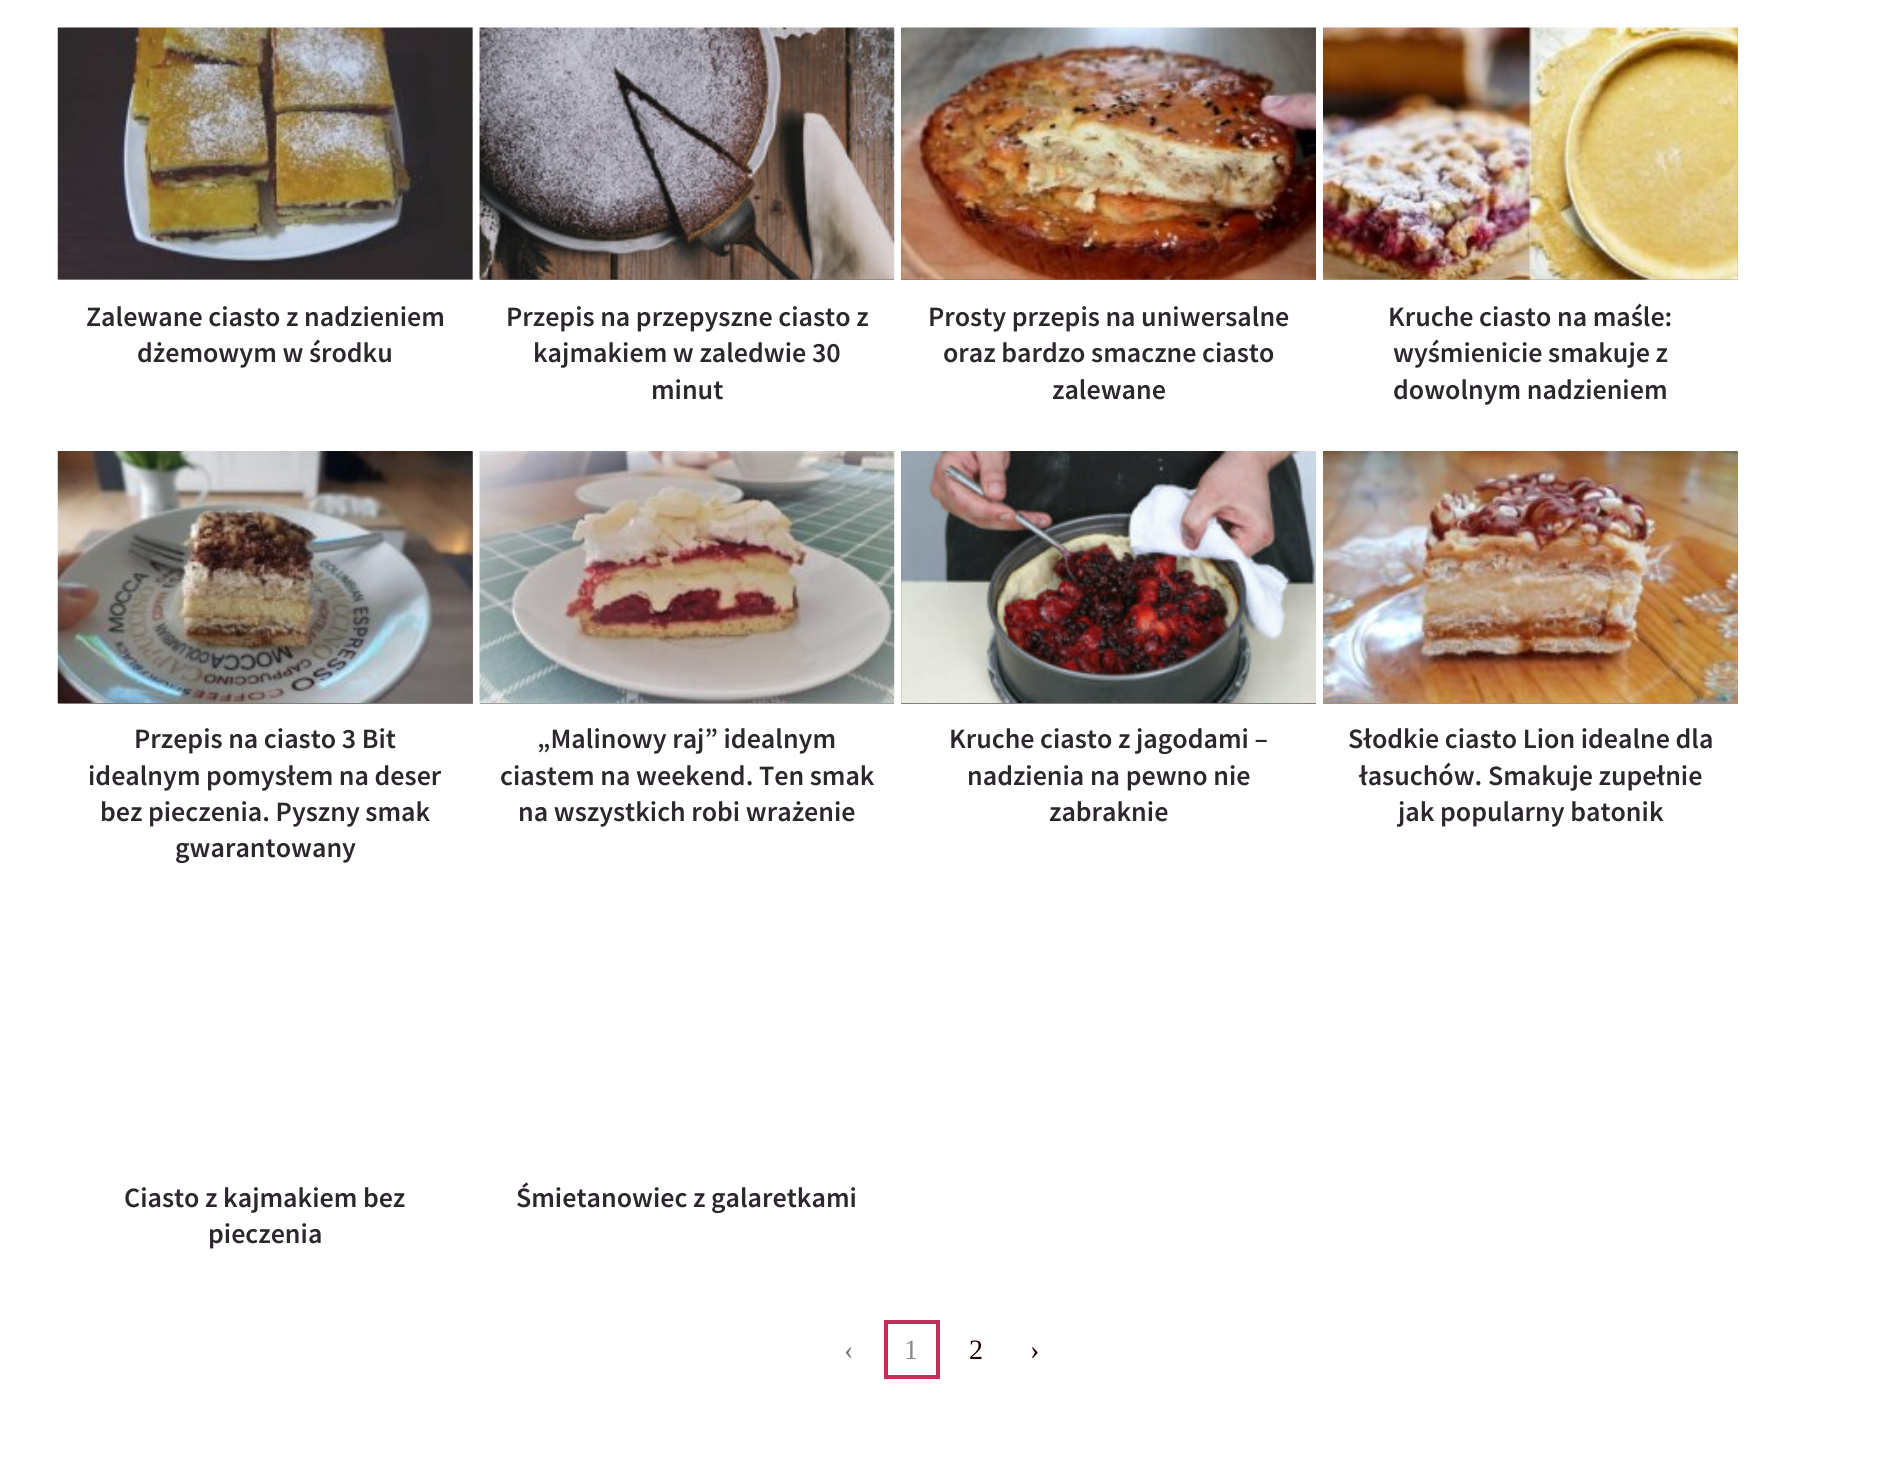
import math
import cairocffi as cairo

surface = cairo.ImageSurface(cairo.FORMAT_RGB24, 1882, 1466)
ctx = cairo.Context(surface)
options = cairo.FontOptions()
options.set_hint_metrics(cairo.HINT_METRICS_OFF)
options.set_hint_style(cairo.HINT_STYLE_NONE)
ctx.set_font_options(options)
ctx.set_miter_limit(4)


def rgb(r, g, b):
    ctx.set_source_rgb(r / 255, g / 255, b / 255)


def face(family, size, italic, bold):
    ctx.select_font_face(family, cairo.FONT_SLANT_ITALIC if italic else cairo.FONT_SLANT_NORMAL, cairo.FONT_WEIGHT_BOLD if bold else cairo.FONT_WEIGHT_NORMAL)
    ctx.set_font_size(size)


def label(x, y, s):
    ctx.move_to(x, y)
    ctx.show_text(s)


def rect(x, y, w, h):
    ctx.rectangle(x, y, w, h)
    ctx.fill()


def image(path, x, y, w, h):
    ctx.save()
    ctx.set_source_surface(cairo.ImageSurface.create_from_png(path), x, y)
    ctx.rectangle(x, y, w, h)
    ctx.fill()
    ctx.restore()


rgb(255, 255, 255)
ctx.paint()
rgb(197, 193, 188)
rect(58, 28, 415, 252)
image('image0.png', 57, 27, 416, 253)
face('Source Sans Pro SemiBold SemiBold', 28, 0, 0)
rgb(44, 39, 45)
label(86, 326, 'Zalewane ciasto z nadzieniem')
label(137, 362, 'dżemowym w środku')
rgb(121, 109, 104)
rect(480, 279, 414, 1)
image('image1.png', 479, 27, 416, 253)
rgb(44, 39, 45)
label(506, 326, 'Przepis na przepyszne ciasto z')
label(533, 362, 'kajmakiem w zaledwie 30')
label(651, 399, 'minut')
rgb(145, 104, 81)
rect(901, 28, 415, 252)
image('image2.png', 901, 27, 415, 253)
rgb(44, 39, 45)
label(928, 326, 'Prosty przepis na uniwersalne')
label(943, 362, 'oraz bardzo smaczne ciasto')
label(1052, 399, 'zalewane')
rgb(188, 160, 117)
rect(1323, 28, 415, 252)
image('image3.png', 1323, 27, 415, 253)
rgb(44, 39, 45)
label(1388, 326, 'Kruche ciasto na maśle:')
label(1393, 362, 'wyśmienicie smakuje z')
label(1393, 399, 'dowolnym nadzieniem')
rgb(131, 125, 120)
rect(58, 452, 415, 252)
image('image4.png', 57, 451, 416, 252)
rgb(44, 39, 45)
label(134, 748, 'Przepis na ciasto 3 Bit')
label(88, 785, 'idealnym pomysłem na deser')
label(100, 821, 'bez pieczenia. Pyszny smak')
label(175, 857, 'gwarantowany')
rgb(167, 159, 152)
rect(480, 703, 414, 1)
image('image5.png', 479, 451, 416, 252)
rgb(44, 39, 45)
label(537, 748, '„Malinowy raj” idealnym')
label(500, 785, 'ciastem na weekend. Ten smak')
label(518, 821, 'na wszystkich robi wrażenie')
rgb(136, 127, 125)
rect(901, 452, 415, 252)
image('image6.png', 901, 451, 415, 252)
rgb(44, 39, 45)
label(949, 748, 'Kruche ciasto z jagodami –')
label(967, 785, 'nadzienia na pewno nie')
label(1049, 821, 'zabraknie')
rgb(176, 141, 114)
rect(1323, 452, 415, 252)
image('image7.png', 1323, 451, 415, 252)
rgb(44, 39, 45)
label(1348, 748, 'Słodkie ciasto Lion idealne dla')
label(1359, 785, 'łasuchów. Smakuje zupełnie')
label(1398, 821, 'jak popularny batonik')
label(124, 1207, 'Ciasto z kajmakiem bez')
label(208, 1243, 'pieczenia')
label(516, 1207, 'Śmietanowiec z galaretkami')
face('Liberation Serif', 28, 0, 0)
rgb(108, 117, 125)
label(844, 1359, '‹')
ctx.rectangle(886, 1322, 52, 55)
rgb(197, 45, 90)
ctx.set_line_width(4)
ctx.stroke()
rgb(136, 136, 136)
label(904, 1359, '1')
rgb(30, 0, 0)
label(969, 1359, '2')
label(1030, 1359, '›')
surface.write_to_png('render.png')
